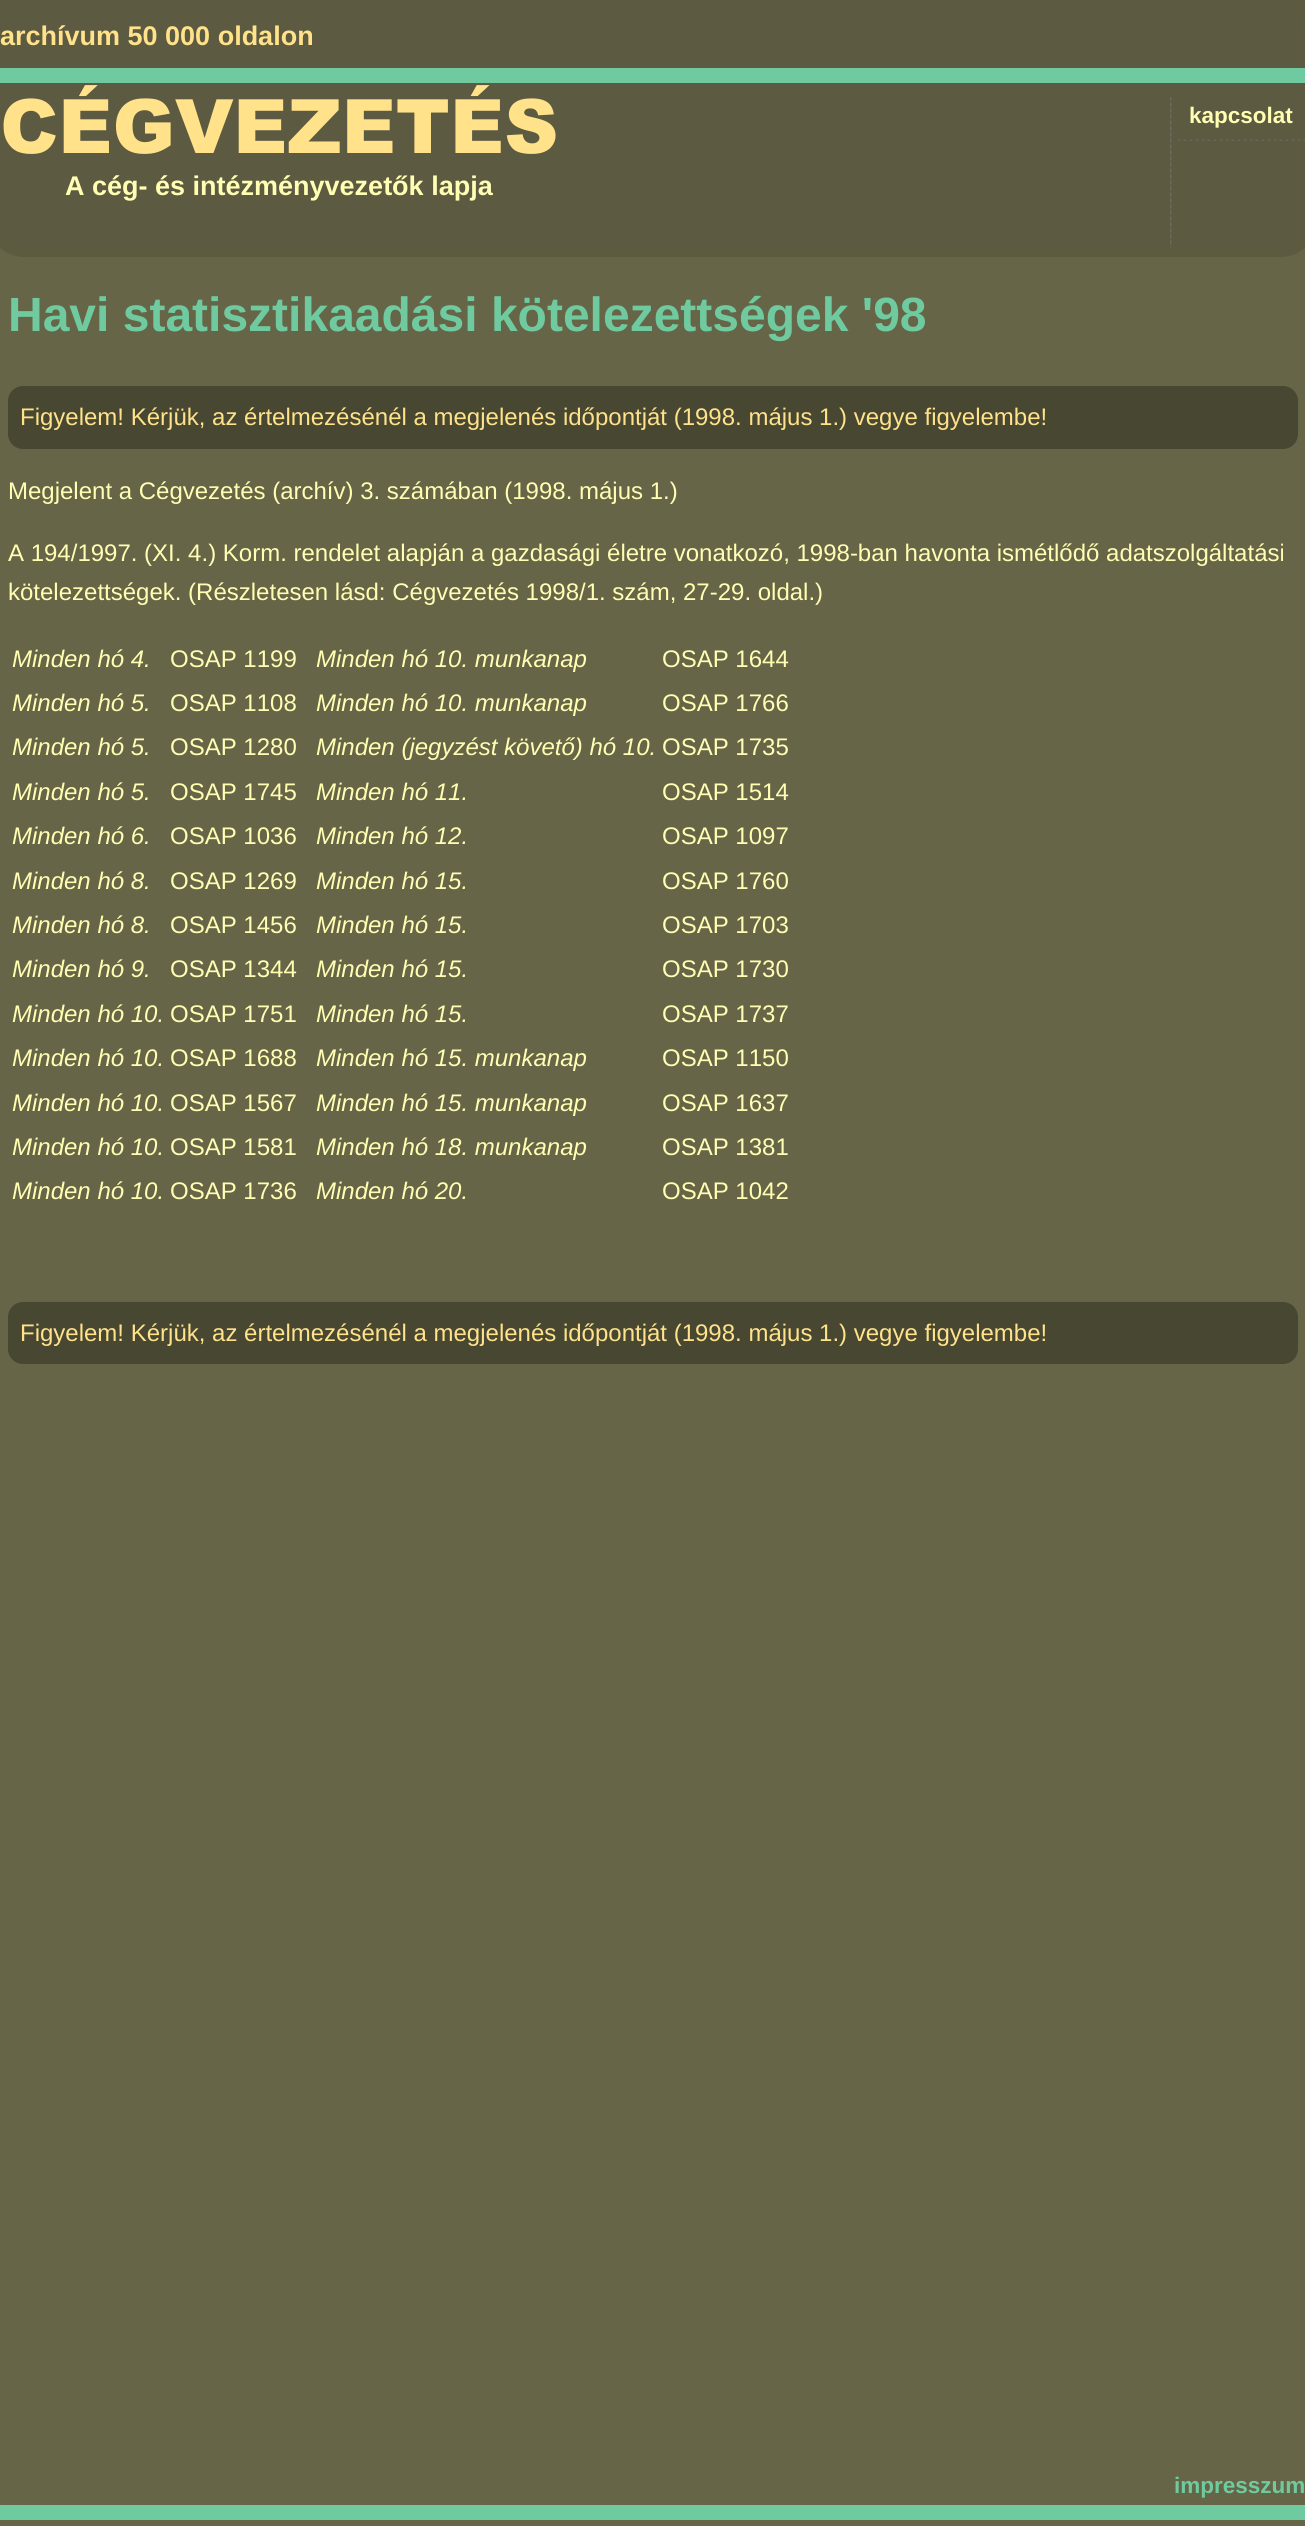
import math
import cairocffi as cairo

surface = cairo.ImageSurface(cairo.FORMAT_RGB24, 1305, 2526)
ctx = cairo.Context(surface)
options = cairo.FontOptions()
options.set_hint_metrics(cairo.HINT_METRICS_OFF)
options.set_hint_style(cairo.HINT_STYLE_NONE)
ctx.set_font_options(options)
ctx.set_miter_limit(4)


def rgb(r, g, b):
    ctx.set_source_rgb(r / 255, g / 255, b / 255)


def face(family, size, italic, bold):
    ctx.select_font_face(family, cairo.FONT_SLANT_ITALIC if italic else cairo.FONT_SLANT_NORMAL, cairo.FONT_WEIGHT_BOLD if bold else cairo.FONT_WEIGHT_NORMAL)
    ctx.set_font_size(size)


def label(x, y, s):
    ctx.move_to(x, y)
    ctx.show_text(s)


def rect(x, y, w, h):
    ctx.rectangle(x, y, w, h)
    ctx.fill()


def rrect(x, y, w, h, r):
    ctx.new_sub_path()
    for i, (u, v) in enumerate([(x + w - r, y + h - r), (x + r, y + h - r), (x + r, y + r), (x + w - r, y + r)]):
        ctx.arc(u, v, r, i * math.pi / 2, (i + 1) * math.pi / 2)
    ctx.close_path()


def image(path, x, y, w, h):
    ctx.save()
    ctx.set_source_surface(cairo.ImageSurface.create_from_png(path), x, y)
    ctx.rectangle(x, y, w, h)
    ctx.fill()
    ctx.restore()


rgb(102, 101, 71)
ctx.paint()
rgb(92, 90, 64)
rrect(0, 0, 1305, 245, 24)
ctx.fill()
image('image0.png', 1170, 97, 2, 151)
image('image1.png', 1178, 139, 127, 2)
rrect(-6, -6, 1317, 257, 30)
ctx.set_source_rgba(0, 0, 0, 0.1)
ctx.set_line_width(12)
ctx.stroke()
rgb(111, 203, 159)
rect(0, 68, 1305, 15)
face('Liberation Sans', 27, 0, 1)
rgb(255, 226, 138)
label(0, 45, 'archívum 50 000 oldalon')
face('Arial Black', 75, 0, 0)
label(0, 153, 'CÉGVEZETÉS')
face('Liberation Sans', 22.5, 0, 1)
rgb(255, 254, 179)
label(1189, 123, 'kapcsolat')
face('Liberation Sans', 27, 0, 1)
label(65, 195, 'A cég- és intézményvezetők lapja')
face('Liberation Sans', 48, 0, 1)
rgb(111, 203, 159)
label(8, 331, 'Havi statisztikaadási kötelezettségek \'98')
rgb(71, 71, 50)
rrect(8, 386, 1290, 63, 15)
ctx.fill()
face('Liberation Sans', 24, 0, 0)
rgb(255, 226, 138)
label(20, 425, 'Figyelem! Kérjük, az értelmezésénél a megjelenés időpontját (1998. május 1.) vegye figyelembe!')
rgb(255, 254, 179)
label(8, 499, 'Megjelent a Cégvezetés (archív) 3. számában (1998. május 1.)')
label(8, 561, 'A 194/1997. (XI. 4.) Korm. rendelet alapján a gazdasági életre vonatkozó, 1998-ban havonta ismétlődő adatszolgáltatási')
label(8, 600, 'kötelezettségek. (Részletesen lásd: Cégvezetés 1998/1. szám, 27-29. oldal.)')
face('Liberation Sans', 24, 1, 0)
label(12, 667, 'Minden hó 4.')
face('Liberation Sans', 24, 0, 0)
label(170, 667, 'OSAP 1199')
face('Liberation Sans', 24, 1, 0)
label(316, 667, 'Minden hó 10. munkanap')
face('Liberation Sans', 24, 0, 0)
label(662, 667, 'OSAP 1644')
face('Liberation Sans', 24, 1, 0)
label(12, 711, 'Minden hó 5.')
face('Liberation Sans', 24, 0, 0)
label(170, 711, 'OSAP 1108')
face('Liberation Sans', 24, 1, 0)
label(316, 711, 'Minden hó 10. munkanap')
face('Liberation Sans', 24, 0, 0)
label(662, 711, 'OSAP 1766')
face('Liberation Sans', 24, 1, 0)
label(12, 755, 'Minden hó 5.')
face('Liberation Sans', 24, 0, 0)
label(170, 755, 'OSAP 1280')
face('Liberation Sans', 24, 1, 0)
label(316, 755, 'Minden (jegyzést követő) hó 10.')
face('Liberation Sans', 24, 0, 0)
label(662, 755, 'OSAP 1735')
face('Liberation Sans', 24, 1, 0)
label(12, 800, 'Minden hó 5.')
face('Liberation Sans', 24, 0, 0)
label(170, 800, 'OSAP 1745')
face('Liberation Sans', 24, 1, 0)
label(316, 800, 'Minden hó 11.')
face('Liberation Sans', 24, 0, 0)
label(662, 800, 'OSAP 1514')
face('Liberation Sans', 24, 1, 0)
label(12, 844, 'Minden hó 6.')
face('Liberation Sans', 24, 0, 0)
label(170, 844, 'OSAP 1036')
face('Liberation Sans', 24, 1, 0)
label(316, 844, 'Minden hó 12.')
face('Liberation Sans', 24, 0, 0)
label(662, 844, 'OSAP 1097')
face('Liberation Sans', 24, 1, 0)
label(12, 889, 'Minden hó 8.')
face('Liberation Sans', 24, 0, 0)
label(170, 889, 'OSAP 1269')
face('Liberation Sans', 24, 1, 0)
label(316, 889, 'Minden hó 15.')
face('Liberation Sans', 24, 0, 0)
label(662, 889, 'OSAP 1760')
face('Liberation Sans', 24, 1, 0)
label(12, 933, 'Minden hó 8.')
face('Liberation Sans', 24, 0, 0)
label(170, 933, 'OSAP 1456')
face('Liberation Sans', 24, 1, 0)
label(316, 933, 'Minden hó 15.')
face('Liberation Sans', 24, 0, 0)
label(662, 933, 'OSAP 1703')
face('Liberation Sans', 24, 1, 0)
label(12, 977, 'Minden hó 9.')
face('Liberation Sans', 24, 0, 0)
label(170, 977, 'OSAP 1344')
face('Liberation Sans', 24, 1, 0)
label(316, 977, 'Minden hó 15.')
face('Liberation Sans', 24, 0, 0)
label(662, 977, 'OSAP 1730')
face('Liberation Sans', 24, 1, 0)
label(12, 1022, 'Minden hó 10.')
face('Liberation Sans', 24, 0, 0)
label(170, 1022, 'OSAP 1751')
face('Liberation Sans', 24, 1, 0)
label(316, 1022, 'Minden hó 15.')
face('Liberation Sans', 24, 0, 0)
label(662, 1022, 'OSAP 1737')
face('Liberation Sans', 24, 1, 0)
label(12, 1066, 'Minden hó 10.')
face('Liberation Sans', 24, 0, 0)
label(170, 1066, 'OSAP 1688')
face('Liberation Sans', 24, 1, 0)
label(316, 1066, 'Minden hó 15. munkanap')
face('Liberation Sans', 24, 0, 0)
label(662, 1066, 'OSAP 1150')
face('Liberation Sans', 24, 1, 0)
label(12, 1111, 'Minden hó 10.')
face('Liberation Sans', 24, 0, 0)
label(170, 1111, 'OSAP 1567')
face('Liberation Sans', 24, 1, 0)
label(316, 1111, 'Minden hó 15. munkanap')
face('Liberation Sans', 24, 0, 0)
label(662, 1111, 'OSAP 1637')
face('Liberation Sans', 24, 1, 0)
label(12, 1155, 'Minden hó 10.')
face('Liberation Sans', 24, 0, 0)
label(170, 1155, 'OSAP 1581')
face('Liberation Sans', 24, 1, 0)
label(316, 1155, 'Minden hó 18. munkanap')
face('Liberation Sans', 24, 0, 0)
label(662, 1155, 'OSAP 1381')
face('Liberation Sans', 24, 1, 0)
label(12, 1199, 'Minden hó 10.')
face('Liberation Sans', 24, 0, 0)
label(170, 1199, 'OSAP 1736')
face('Liberation Sans', 24, 1, 0)
label(316, 1199, 'Minden hó 20.')
face('Liberation Sans', 24, 0, 0)
label(662, 1199, 'OSAP 1042')
rgb(71, 71, 50)
rrect(8, 1302, 1290, 62, 15)
ctx.fill()
rgb(255, 226, 138)
label(20, 1341, 'Figyelem! Kérjük, az értelmezésénél a megjelenés időpontját (1998. május 1.) vegye figyelembe!')
rgb(111, 203, 159)
rect(0, 2505, 1305, 15)
face('Liberation Sans', 22.5, 0, 1)
label(1174, 2493, 'impresszum')
surface.write_to_png('render.png')
